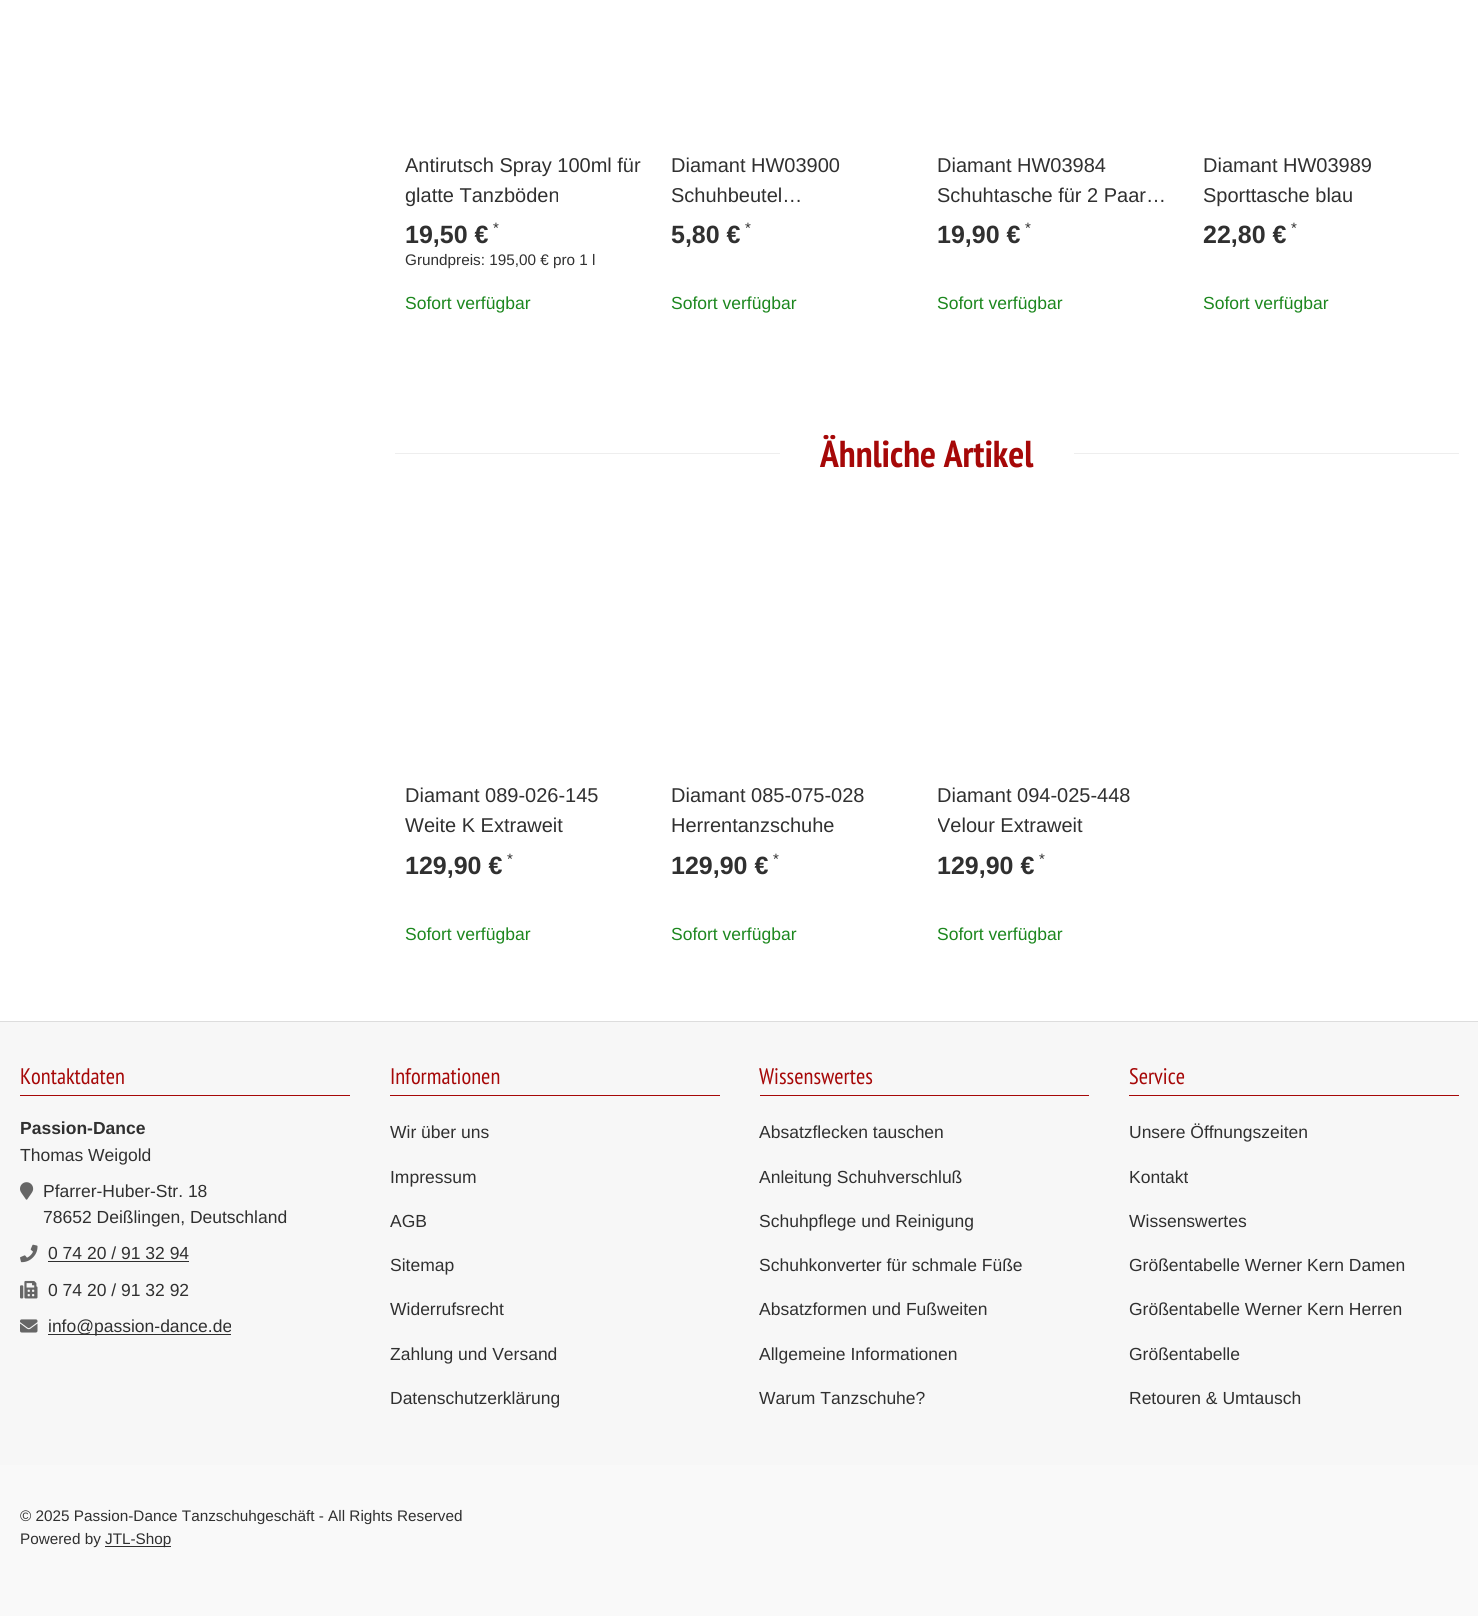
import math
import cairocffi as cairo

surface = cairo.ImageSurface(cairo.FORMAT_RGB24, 1478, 1616)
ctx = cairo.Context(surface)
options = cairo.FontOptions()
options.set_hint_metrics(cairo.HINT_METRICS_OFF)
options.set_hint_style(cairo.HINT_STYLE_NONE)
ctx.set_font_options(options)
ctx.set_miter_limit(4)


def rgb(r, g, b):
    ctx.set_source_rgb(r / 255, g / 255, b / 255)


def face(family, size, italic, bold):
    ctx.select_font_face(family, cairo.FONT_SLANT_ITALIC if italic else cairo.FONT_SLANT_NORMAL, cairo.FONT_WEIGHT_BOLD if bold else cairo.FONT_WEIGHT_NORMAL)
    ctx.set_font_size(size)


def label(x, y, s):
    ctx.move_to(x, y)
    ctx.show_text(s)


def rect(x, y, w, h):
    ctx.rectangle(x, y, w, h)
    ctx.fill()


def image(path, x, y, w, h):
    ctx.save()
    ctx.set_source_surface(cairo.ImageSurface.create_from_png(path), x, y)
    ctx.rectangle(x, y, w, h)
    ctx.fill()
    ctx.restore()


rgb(255, 255, 255)
ctx.paint()
face('Liberation Sans', 20, 0, 0)
rgb(48, 48, 48)
label(405, 172, 'Antirutsch Spray 100ml für')
label(405, 202, 'glatte Tanzböden')
face('Liberation Sans', 25, 0, 1)
label(405, 243, '19,50 €')
face('Liberation Sans', 15, 0, 0)
label(493, 233, '*')
face('Liberation Sans', 15.3, 0, 0)
label(405, 265, 'Grundpreis: 195,00 € pro 1 l')
face('Liberation Sans', 17.5, 0, 0)
rgb(28, 135, 30)
label(405, 309, 'Sofort verfügbar')
face('Liberation Sans', 20, 0, 0)
rgb(48, 48, 48)
label(671, 172, 'Diamant HW03900')
label(671, 202, 'Schuhbeutel…')
face('Liberation Sans', 25, 0, 1)
label(671, 243, '5,80 €')
face('Liberation Sans', 15, 0, 0)
label(745, 233, '*')
face('Liberation Sans', 17.5, 0, 0)
rgb(28, 135, 30)
label(671, 309, 'Sofort verfügbar')
face('Liberation Sans', 20, 0, 0)
rgb(48, 48, 48)
label(937, 172, 'Diamant HW03984')
label(937, 202, 'Schuhtasche für 2 Paar…')
face('Liberation Sans', 25, 0, 1)
label(937, 243, '19,90 €')
face('Liberation Sans', 15, 0, 0)
label(1025, 233, '*')
face('Liberation Sans', 17.5, 0, 0)
rgb(28, 135, 30)
label(937, 309, 'Sofort verfügbar')
face('Liberation Sans', 20, 0, 0)
rgb(48, 48, 48)
label(1203, 172, 'Diamant HW03989')
label(1203, 202, 'Sporttasche blau')
face('Liberation Sans', 25, 0, 1)
label(1203, 243, '22,80 €')
face('Liberation Sans', 15, 0, 0)
label(1291, 233, '*')
face('Liberation Sans', 17.5, 0, 0)
rgb(28, 135, 30)
label(1203, 309, 'Sofort verfügbar')
rgb(238, 238, 238)
rect(395, 453, 385, 1)
face('PT Sans Narrow', 37.5, 0, 1)
rgb(166, 8, 8)
label(820, 467, 'Ähnliche Artikel')
rgb(238, 238, 238)
rect(1074, 453, 385, 1)
face('Liberation Sans', 20, 0, 0)
rgb(48, 48, 48)
label(405, 802, 'Diamant 089-026-145')
label(405, 832, 'Weite K Extraweit')
face('Liberation Sans', 25, 0, 1)
label(405, 874, '129,90 €')
face('Liberation Sans', 15, 0, 0)
label(507, 864, '*')
face('Liberation Sans', 17.5, 0, 0)
rgb(28, 135, 30)
label(405, 940, 'Sofort verfügbar')
face('Liberation Sans', 20, 0, 0)
rgb(48, 48, 48)
label(671, 802, 'Diamant 085-075-028')
label(671, 832, 'Herrentanzschuhe')
face('Liberation Sans', 25, 0, 1)
label(671, 874, '129,90 €')
face('Liberation Sans', 15, 0, 0)
label(773, 864, '*')
face('Liberation Sans', 17.5, 0, 0)
rgb(28, 135, 30)
label(671, 940, 'Sofort verfügbar')
face('Liberation Sans', 20, 0, 0)
rgb(48, 48, 48)
label(937, 802, 'Diamant 094-025-448')
ctx.save()
ctx.rectangle(938, 781, 245, 60)
ctx.clip()
label(937, 832, 'Velour Extraweit')
ctx.restore()
face('Liberation Sans', 25, 0, 1)
label(937, 874, '129,90 €')
face('Liberation Sans', 15, 0, 0)
label(1039, 864, '*')
face('Liberation Sans', 17.5, 0, 0)
rgb(28, 135, 30)
label(937, 940, 'Sofort verfügbar')
rgb(247, 247, 247)
rect(0, 1022, 1478, 443)
rgb(221, 221, 221)
rect(0, 1021, 1478, 1)
rgb(166, 8, 8)
rect(20, 1095, 330, 1)
face('PT Sans Narrow', 22.5, 0, 0)
label(20, 1084, 'Kontaktdaten')
face('Liberation Sans', 17.5, 0, 1)
rgb(48, 48, 48)
label(20, 1134, 'Passion-Dance')
face('Liberation Sans', 17.5, 0, 0)
label(20, 1161, 'Thomas Weigold')
image('image0.png', 20, 1182, 14, 18)
label(43, 1197, 'Pfarrer-Huber-Str. 18')
label(43, 1223, '78652 Deißlingen, Deutschland')
image('image1.png', 20, 1244, 18, 19)
label(48, 1259, '0 74 20 / 91 32 94')
rect(48, 1261, 141, 1)
image('image2.png', 20, 1280, 18, 19)
label(48, 1296, '0 74 20 / 91 32 92')
image('image3.png', 20, 1319, 18, 14)
rect(48, 1334, 183, 1)
label(48, 1332, 'info@passion-dance.de')
rgb(166, 8, 8)
rect(390, 1095, 330, 1)
face('PT Sans Narrow', 22.5, 0, 0)
label(390, 1084, 'Informationen')
face('Liberation Sans', 17.5, 0, 0)
rgb(48, 48, 48)
label(390, 1138, 'Wir über uns')
label(390, 1183, 'Impressum')
label(390, 1227, 'AGB')
label(390, 1271, 'Sitemap')
label(390, 1315, 'Widerrufsrecht')
label(390, 1360, 'Zahlung und Versand')
label(390, 1404, 'Datenschutzerklärung')
rgb(166, 8, 8)
rect(760, 1095, 329, 1)
face('PT Sans Narrow', 22.5, 0, 0)
label(759, 1084, 'Wissenswertes')
face('Liberation Sans', 17.5, 0, 0)
rgb(48, 48, 48)
label(759, 1138, 'Absatzflecken tauschen')
label(759, 1183, 'Anleitung Schuhverschluß')
label(759, 1227, 'Schuhpflege und Reinigung')
label(759, 1271, 'Schuhkonverter für schmale Füße')
label(759, 1315, 'Absatzformen und Fußweiten')
label(759, 1360, 'Allgemeine Informationen')
label(759, 1404, 'Warum Tanzschuhe?')
rgb(166, 8, 8)
rect(1129, 1095, 330, 1)
face('PT Sans Narrow', 22.5, 0, 0)
label(1129, 1084, 'Service')
face('Liberation Sans', 17.5, 0, 0)
rgb(48, 48, 48)
label(1129, 1138, 'Unsere Öffnungszeiten')
label(1129, 1183, 'Kontakt')
label(1129, 1227, 'Wissenswertes')
label(1129, 1271, 'Größentabelle Werner Kern Damen')
label(1129, 1315, 'Größentabelle Werner Kern Herren')
label(1129, 1360, 'Größentabelle')
label(1129, 1404, 'Retouren & Umtausch')
rgb(249, 249, 249)
rect(0, 1465, 1478, 151)
face('Liberation Sans', 15.3, 0, 0)
rgb(48, 48, 48)
label(20, 1521, '© 2025 Passion-Dance Tanzschuhgeschäft - All Rights Reserved')
label(20, 1544, 'Powered by')
rect(105, 1546, 66, 1)
label(105, 1544, 'JTL-Shop')
surface.write_to_png('render.png')
